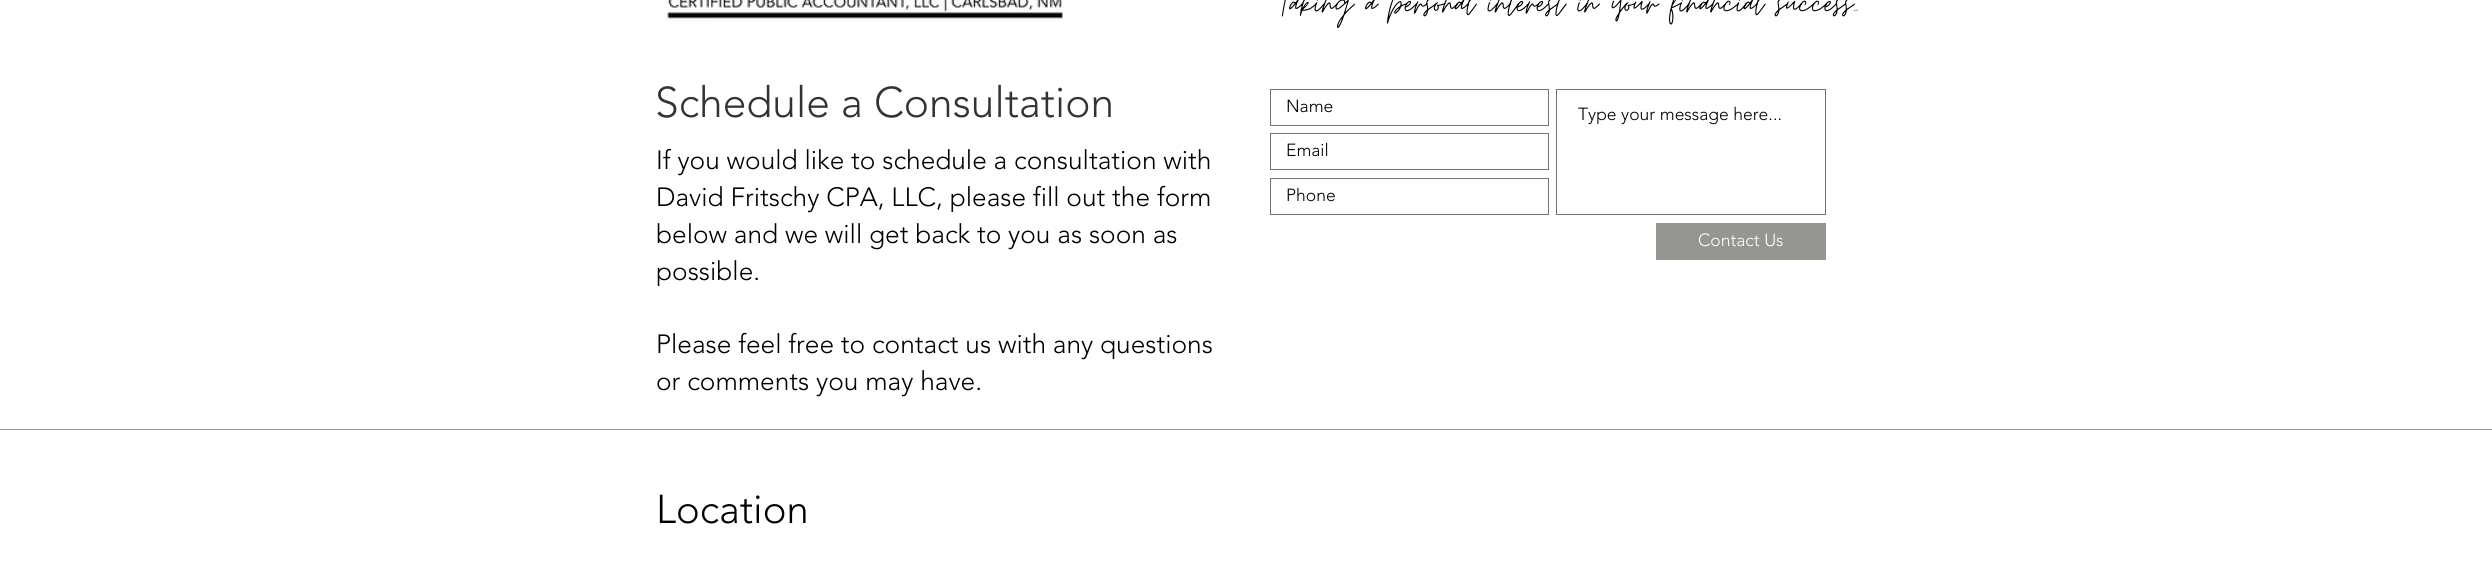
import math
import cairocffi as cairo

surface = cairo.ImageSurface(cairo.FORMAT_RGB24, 2492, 563)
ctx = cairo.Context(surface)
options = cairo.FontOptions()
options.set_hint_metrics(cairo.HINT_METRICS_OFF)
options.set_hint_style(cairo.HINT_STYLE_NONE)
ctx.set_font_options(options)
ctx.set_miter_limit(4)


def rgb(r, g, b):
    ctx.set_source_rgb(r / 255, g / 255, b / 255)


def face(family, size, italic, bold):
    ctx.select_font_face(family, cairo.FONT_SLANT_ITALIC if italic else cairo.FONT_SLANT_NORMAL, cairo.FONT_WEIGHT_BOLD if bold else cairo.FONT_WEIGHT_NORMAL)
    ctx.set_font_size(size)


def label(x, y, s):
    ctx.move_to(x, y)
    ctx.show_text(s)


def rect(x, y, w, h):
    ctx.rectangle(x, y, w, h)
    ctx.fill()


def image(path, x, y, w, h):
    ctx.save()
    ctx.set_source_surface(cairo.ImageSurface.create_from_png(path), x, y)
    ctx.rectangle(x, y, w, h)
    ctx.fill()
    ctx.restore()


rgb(255, 255, 255)
ctx.paint()
image('image0.png', 665, 0, 398, 21)
face('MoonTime', 42.5, 0, 0)
rgb(0, 0, 0)
label(1278, 13, 'Taking a personal interest in your financial success..')
face('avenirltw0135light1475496 Light', 42.5, 0, 0)
rgb(51, 51, 51)
label(655, 117, 'Schedule a Consultation')
ctx.rectangle(1270.5, 89.5, 278, 36)
rgb(115, 115, 115)
ctx.set_line_width(1)
ctx.stroke()
face('avenirltw0135light1475496 Light', 17.5, 0, 0)
rgb(0, 0, 0)
label(1286, 112, 'Name')
ctx.rectangle(1556.5, 89.5, 269, 125)
rgb(115, 115, 115)
ctx.stroke()
rgb(0, 0, 0)
label(1578, 120, 'Type your message here...')
ctx.rectangle(1270.5, 133.5, 278, 36)
rgb(115, 115, 115)
ctx.stroke()
rgb(0, 0, 0)
label(1286, 156, 'Email')
ctx.rectangle(1270.5, 178.5, 278, 36)
rgb(115, 115, 115)
ctx.stroke()
rgb(0, 0, 0)
label(1286, 201, 'Phone')
rgb(149, 149, 146)
rect(1656, 223, 170, 37)
rgb(255, 255, 255)
label(1698, 246, 'Contact Us')
face('avenirltw0135light1475496 Light', 26.25, 0, 0)
rgb(0, 0, 0)
label(656, 169, 'If you would like to schedule a consultation with')
label(656, 206, 'David Fritschy CPA, LLC, please fill out the form')
label(656, 243, 'below and we will get back to you as soon as')
label(656, 280, 'possible.')
label(656, 353, 'Please feel free to contact us with any questions')
label(656, 390, 'or comments you may have.')
rgb(149, 149, 146)
rect(0, 429, 2492, 1)
face('avenirltw0135light1475496 Light', 40, 0, 0)
rgb(0, 0, 0)
label(656, 523, 'Location')
surface.write_to_png('render.png')
